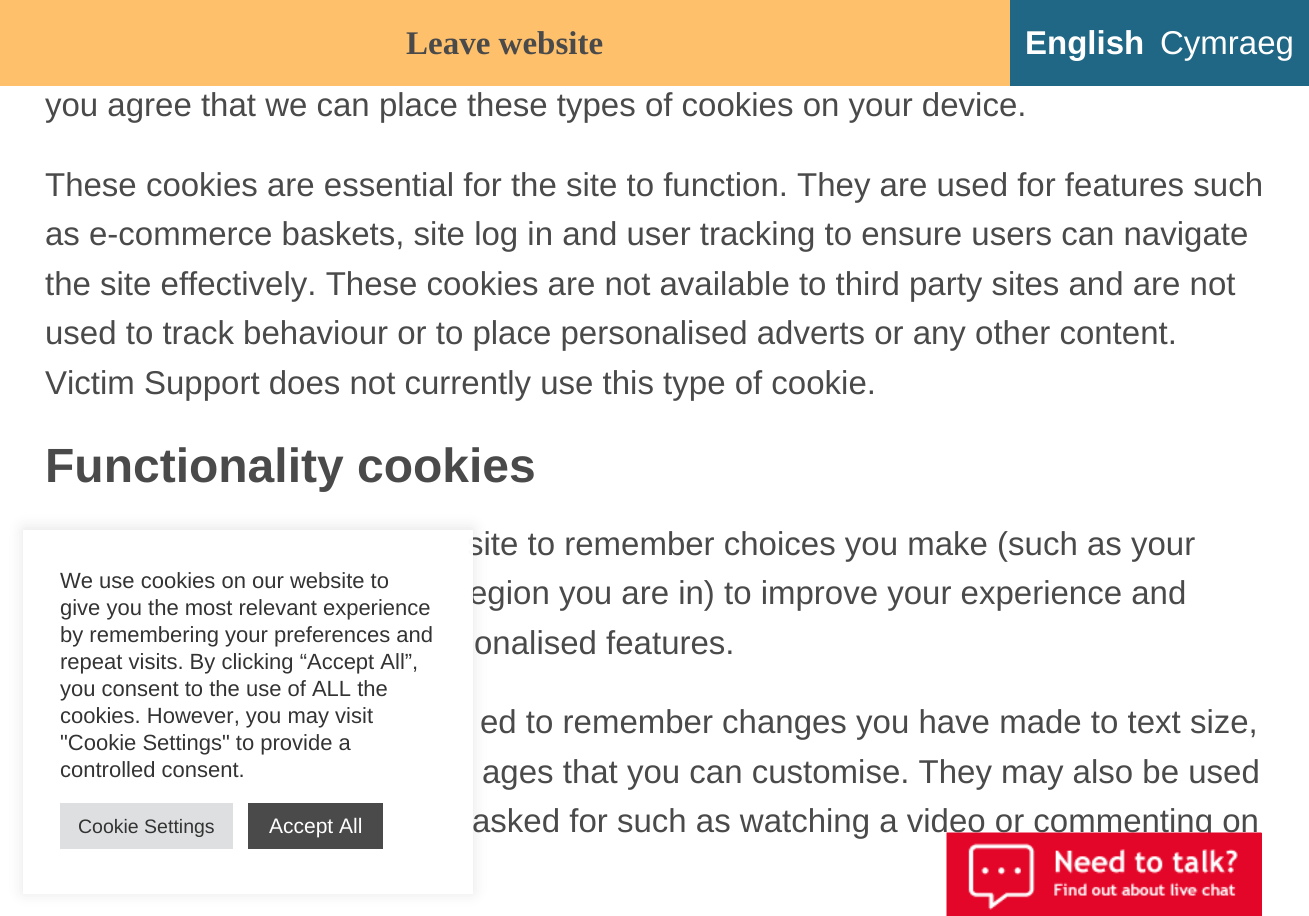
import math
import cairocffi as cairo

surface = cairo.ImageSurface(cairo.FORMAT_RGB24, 1309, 916)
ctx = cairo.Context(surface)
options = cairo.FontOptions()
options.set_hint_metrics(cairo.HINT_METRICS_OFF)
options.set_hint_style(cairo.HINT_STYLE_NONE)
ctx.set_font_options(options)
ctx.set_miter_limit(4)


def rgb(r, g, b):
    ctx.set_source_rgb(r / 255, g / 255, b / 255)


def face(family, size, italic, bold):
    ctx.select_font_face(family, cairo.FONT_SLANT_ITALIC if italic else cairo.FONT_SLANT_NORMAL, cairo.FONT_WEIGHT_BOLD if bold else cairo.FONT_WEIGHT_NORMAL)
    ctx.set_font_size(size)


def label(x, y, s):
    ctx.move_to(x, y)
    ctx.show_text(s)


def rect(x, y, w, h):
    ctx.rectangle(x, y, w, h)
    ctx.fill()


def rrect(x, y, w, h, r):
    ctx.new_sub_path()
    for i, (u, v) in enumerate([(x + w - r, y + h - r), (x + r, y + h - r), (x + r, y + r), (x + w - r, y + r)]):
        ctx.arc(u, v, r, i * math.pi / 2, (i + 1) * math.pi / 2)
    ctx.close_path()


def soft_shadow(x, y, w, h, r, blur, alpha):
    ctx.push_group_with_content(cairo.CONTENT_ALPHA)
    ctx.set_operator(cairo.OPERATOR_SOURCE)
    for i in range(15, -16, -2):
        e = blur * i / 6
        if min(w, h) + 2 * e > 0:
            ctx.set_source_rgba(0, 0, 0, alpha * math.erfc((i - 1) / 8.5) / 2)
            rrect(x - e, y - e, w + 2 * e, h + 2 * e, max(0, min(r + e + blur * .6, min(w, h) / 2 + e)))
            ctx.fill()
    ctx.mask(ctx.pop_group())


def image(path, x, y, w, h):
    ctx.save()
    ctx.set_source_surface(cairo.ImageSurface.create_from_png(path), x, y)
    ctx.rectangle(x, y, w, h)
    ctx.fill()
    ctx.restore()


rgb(255, 255, 255)
ctx.paint()
rgb(31, 103, 132)
rect(1010, 0, 299, 86)
face('Liberation Sans', 33, 0, 1)
rgb(255, 255, 255)
label(1025, 54, 'English')
face('Liberation Sans', 33, 0, 0)
label(1160, 54, 'Cymraeg')
ctx.save()
ctx.set_fill_rule(cairo.FILL_RULE_EVEN_ODD)
ctx.new_path()
ctx.move_to(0, 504)
ctx.line_to(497, 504)
ctx.line_to(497, 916)
ctx.line_to(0, 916)
ctx.close_path()
ctx.move_to(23, 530)
ctx.line_to(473, 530)
ctx.line_to(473, 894)
ctx.line_to(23, 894)
ctx.close_path()
ctx.clip()
rgb(172, 171, 171)
soft_shadow(23, 528, 450, 365, 0, 7.5, 0.3)
ctx.restore()
rgb(74, 74, 74)
label(467, 555, 'site to remember choices you make (such as your')
label(469, 604, 'egion you are in) to improve your experience and')
ctx.set_source_rgba(1, 1, 1, 0.97)
rect(467, 530, 6, 364)
face('Liberation Sans', 22, 0, 0)
rgb(51, 51, 51)
label(60, 588, 'We use cookies on our website to')
label(60, 615, 'give you the most relevant experience')
label(60, 642, 'by remembering your preferences and')
label(60, 669, 'repeat visits. By clicking “Accept All”,')
label(60, 696, 'you consent to the use of ALL the')
label(60, 723, 'cookies. However, you may visit')
label(60, 750, '"Cookie Settings" to provide a')
label(60, 777, 'controlled consent.')
rgb(222, 223, 224)
rect(60, 803, 173, 46)
face('Liberation Sans', 19.5, 0, 0)
rgb(51, 51, 51)
label(78, 833, 'Cookie Settings')
rgb(74, 74, 74)
rect(248, 803, 135, 46)
face('Liberation Sans', 21, 0, 0)
rgb(255, 255, 255)
label(269, 833, 'Accept All')
rgb(255, 192, 107)
rect(0, 0, 1010, 86)
face('Liberation Serif', 33, 0, 1)
rgb(74, 74, 74)
label(406, 54, 'Leave website')
face('Liberation Sans', 33, 0, 0)
label(45, 116, 'you agree that we can place these types of cookies on your device.')
label(45, 196, 'These cookies are essential for the site to function. They are used for features such')
label(45, 245, 'as e-commerce baskets, site log in and user tracking to ensure users can navigate')
label(45, 295, 'the site effectively. These cookies are not available to third party sites and are not')
label(45, 344, 'used to track behaviour or to place personalised adverts or any other content.')
label(45, 394, 'Victim Support does not currently use this type of cookie.')
face('Liberation Sans', 48, 0, 1)
label(45, 482, 'Functionality cookies')
face('Liberation Sans', 33, 0, 0)
label(474, 654, 'onalised features.')
label(480, 733, 'ed to remember changes you have made to text size,')
label(482, 783, 'ages that you can customise. They may also be used')
label(472, 832, 'asked for such as watching a video or commenting on')
rgb(227, 6, 41)
rect(1261, 833, 1, 83)
image('image0.png', 946, 832, 316, 84)
surface.write_to_png('render.png')
